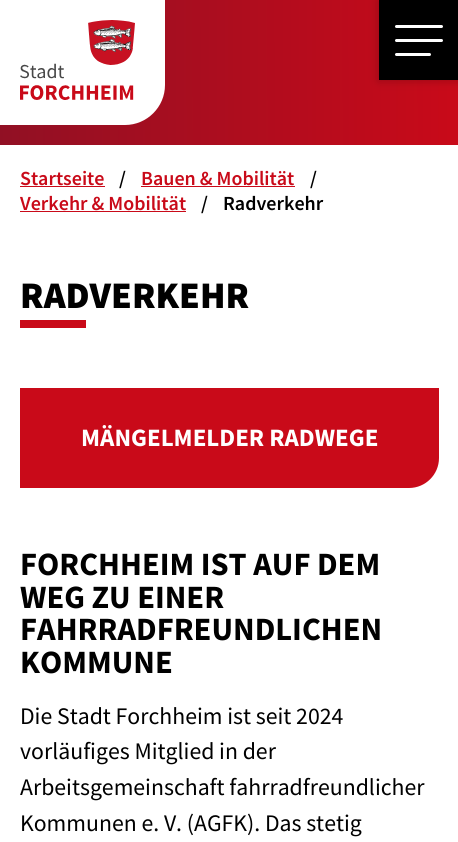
import math
import cairocffi as cairo

surface = cairo.ImageSurface(cairo.FORMAT_RGB24, 458, 842)
ctx = cairo.Context(surface)
options = cairo.FontOptions()
options.set_hint_metrics(cairo.HINT_METRICS_OFF)
options.set_hint_style(cairo.HINT_STYLE_NONE)
ctx.set_font_options(options)
ctx.set_miter_limit(4)


def rgb(r, g, b):
    ctx.set_source_rgb(r / 255, g / 255, b / 255)


def face(family, size, italic, bold):
    ctx.select_font_face(family, cairo.FONT_SLANT_ITALIC if italic else cairo.FONT_SLANT_NORMAL, cairo.FONT_WEIGHT_BOLD if bold else cairo.FONT_WEIGHT_NORMAL)
    ctx.set_font_size(size)


def label(x, y, s):
    ctx.move_to(x, y)
    ctx.show_text(s)


def rect(x, y, w, h):
    ctx.rectangle(x, y, w, h)
    ctx.fill()


def rrect(x, y, w, h, r):
    ctx.new_sub_path()
    for i, (u, v) in enumerate([(x + w - r, y + h - r), (x + r, y + h - r), (x + r, y + r), (x + w - r, y + r)]):
        ctx.arc(u, v, r, i * math.pi / 2, (i + 1) * math.pi / 2)
    ctx.close_path()


def soft_shadow(x, y, w, h, r, blur, alpha):
    ctx.push_group_with_content(cairo.CONTENT_ALPHA)
    ctx.set_operator(cairo.OPERATOR_SOURCE)
    for i in range(15, -16, -2):
        e = blur * i / 6
        if min(w, h) + 2 * e > 0:
            ctx.set_source_rgba(0, 0, 0, alpha * math.erfc((i - 1) / 8.5) / 2)
            rrect(x - e, y - e, w + 2 * e, h + 2 * e, max(0, min(r + e + blur * .6, min(w, h) / 2 + e)))
            ctx.fill()
    ctx.mask(ctx.pop_group())


def image(path, x, y, w, h):
    ctx.save()
    ctx.set_source_surface(cairo.ImageSurface.create_from_png(path), x, y)
    ctx.rectangle(x, y, w, h)
    ctx.fill()
    ctx.restore()


rgb(255, 255, 255)
ctx.paint()
gradient = cairo.LinearGradient(0, 73, 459, 72)
gradient.add_color_stop_rgba(0, 0.569, 0.063, 0.141, 1)
gradient.add_color_stop_rgba(1, 0.788, 0.039, 0.098, 1)
ctx.set_source(gradient)
rect(0, 0, 458, 145)
rgb(255, 255, 255)
ctx.new_path()
ctx.move_to(0, 0)
ctx.line_to(165, 0)
ctx.line_to(165, 85)
ctx.curve_to(165, 107, 147, 125, 125, 125)
ctx.line_to(0, 125)
ctx.close_path()
ctx.fill()
image('image0.png', 20, 20, 115, 80)
rgb(0, 0, 0)
soft_shadow(379, 0, 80, 80, 0, 5, 0.25)
rgb(0, 0, 0)
rect(379, 0, 79, 80)
rgb(255, 255, 255)
rrect(395, 25, 48, 3, 1.5)
ctx.fill()
rrect(395, 39, 48, 3, 1.5)
ctx.fill()
rrect(395, 53, 36, 3, 1.5)
ctx.fill()
face('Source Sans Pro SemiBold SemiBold', 20, 0, 0)
rgb(201, 10, 25)
label(20, 185, 'Startseite')
rect(20, 186, 85, 1)
rgb(0, 0, 0)
label(119, 185, '/')
rgb(201, 10, 25)
label(141, 185, 'Bauen & Mobilität')
rect(141, 186, 154, 1)
rgb(0, 0, 0)
label(310, 185, '/')
rgb(201, 10, 25)
label(20, 210, 'Verkehr & Mobilität')
rect(20, 211, 166, 1)
rgb(0, 0, 0)
label(201, 210, '/')
label(223, 210, 'Radverkehr')
face('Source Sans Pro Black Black', 37.5, 0, 0)
label(20, 308, 'RADVERKEHR')
rgb(201, 10, 25)
rect(20, 320, 66, 8)
ctx.new_path()
ctx.move_to(20, 388)
ctx.line_to(439, 388)
ctx.line_to(439, 458)
ctx.curve_to(439, 474.5, 425.5, 488, 409, 488)
ctx.line_to(20, 488)
ctx.close_path()
ctx.fill()
face('Source Sans Pro', 25, 0, 1)
rgb(255, 255, 255)
label(81, 446, 'MÄNGELMELDER RADWEGE')
face('Source Sans Pro', 32.5, 0, 1)
rgb(0, 0, 0)
label(20, 575, 'FORCHHEIM IST AUF DEM')
label(20, 608, 'WEG ZU EINER')
label(20, 640, 'FAHRRADFREUNDLICHEN')
label(20, 673, 'KOMMUNE')
face('Source Sans Pro', 23.75, 0, 0)
label(20, 724, 'Die Stadt Forchheim ist seit 2024')
label(20, 759, 'vorläufiges Mitglied in der')
label(20, 795, 'Arbeitsgemeinschaft fahrradfreundlicher')
label(20, 831, 'Kommunen e. V. (AGFK). Das stetig')
surface.write_to_png('render.png')
